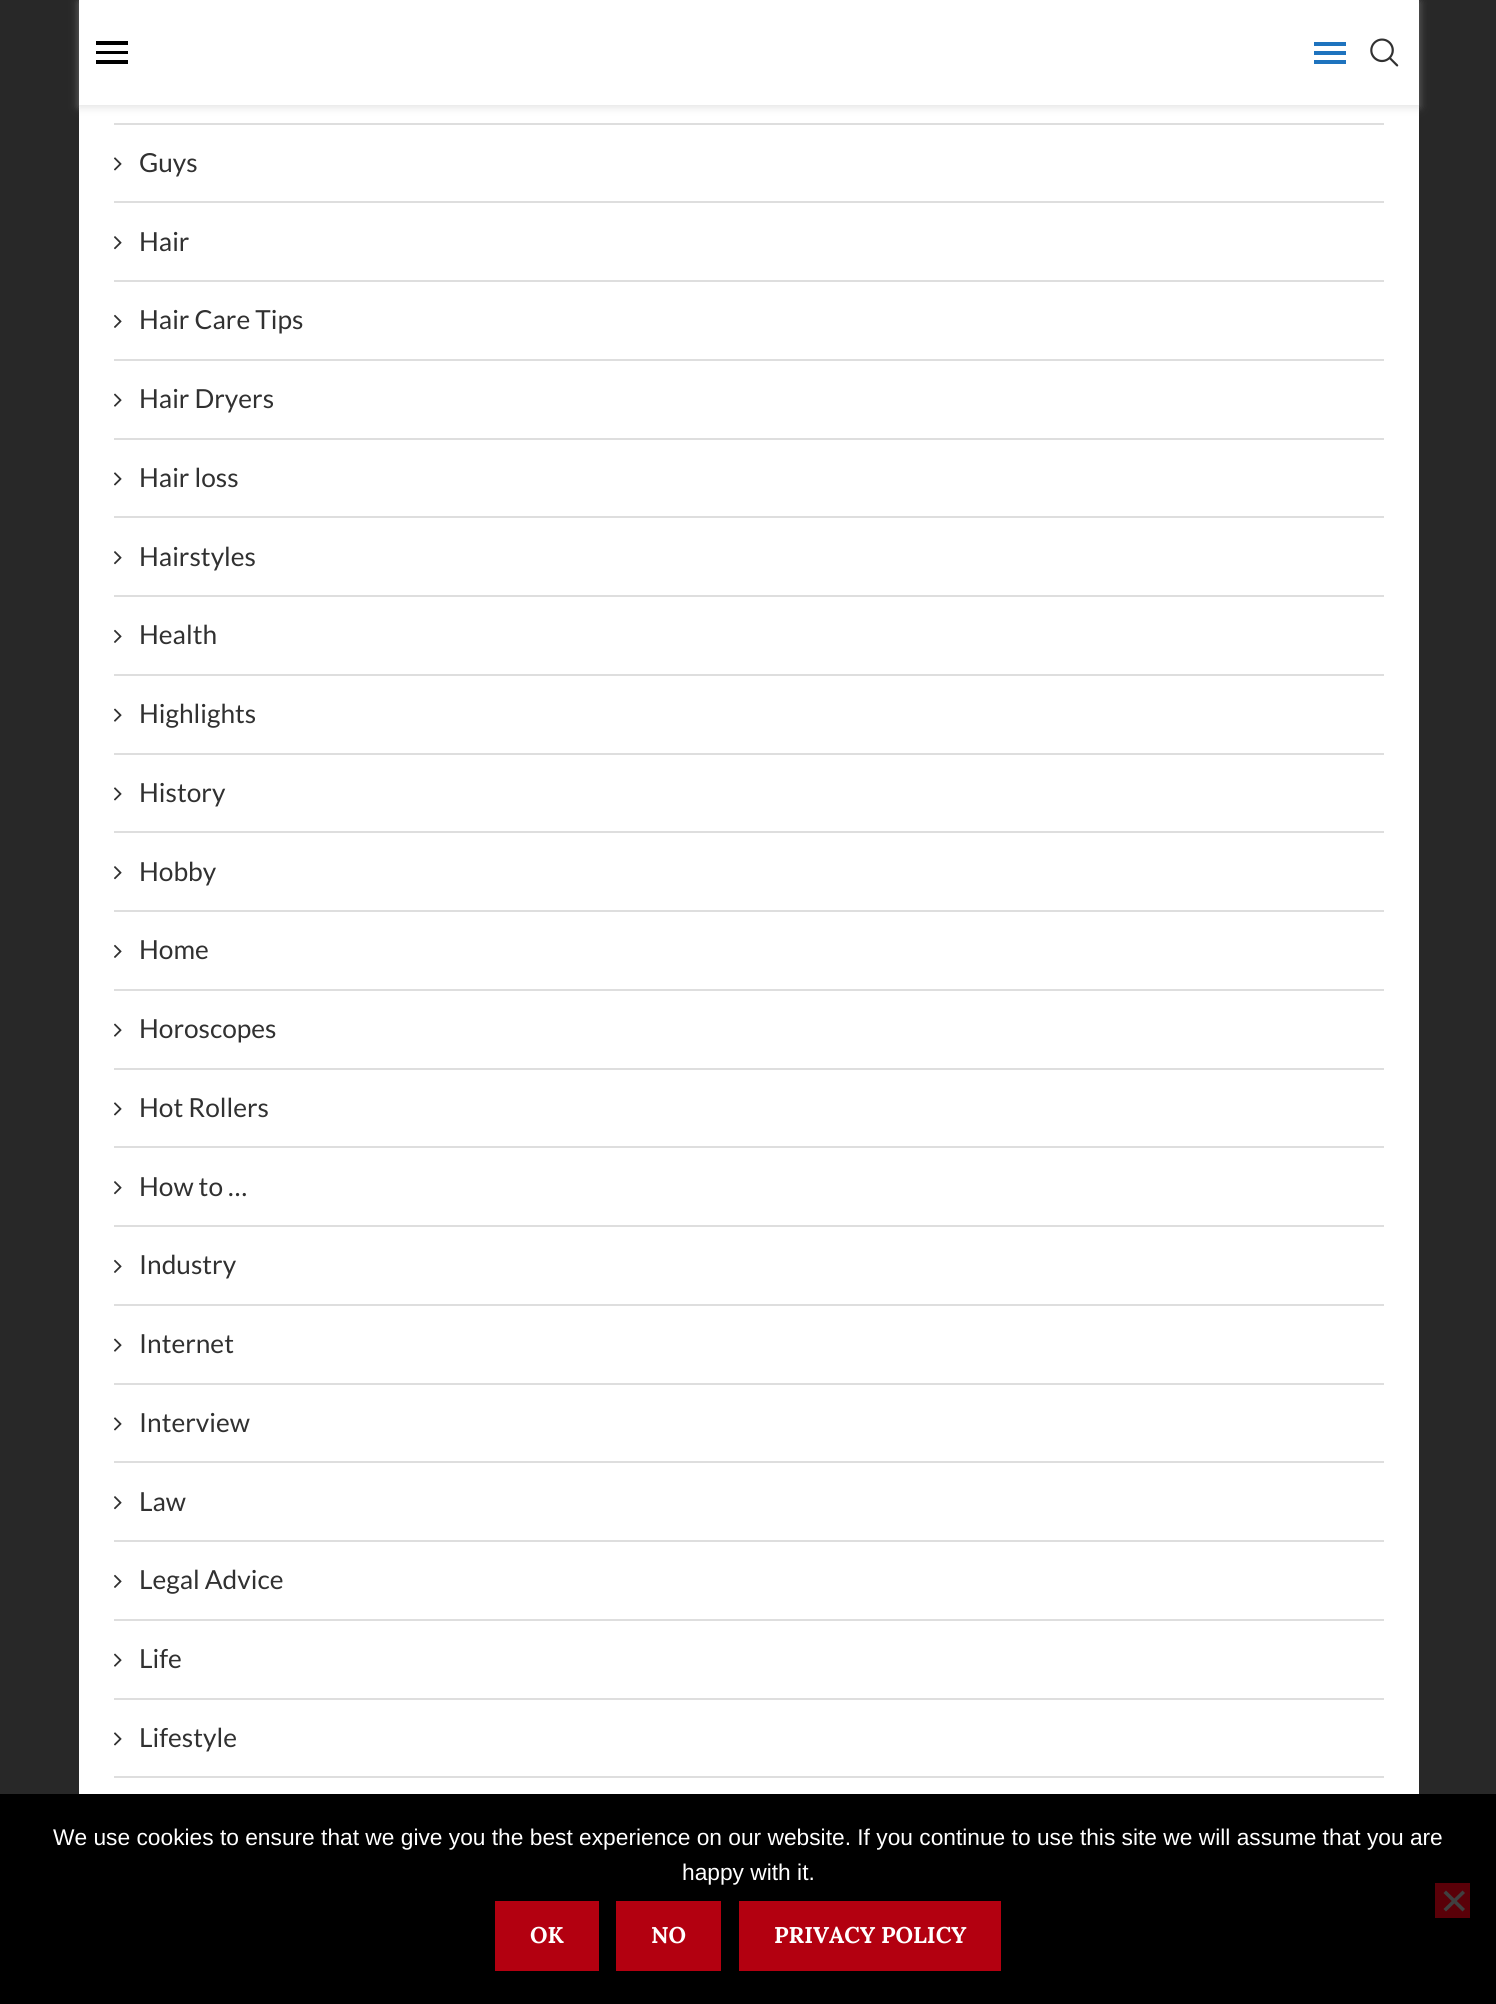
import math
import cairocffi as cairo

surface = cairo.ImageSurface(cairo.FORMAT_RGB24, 1496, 2004)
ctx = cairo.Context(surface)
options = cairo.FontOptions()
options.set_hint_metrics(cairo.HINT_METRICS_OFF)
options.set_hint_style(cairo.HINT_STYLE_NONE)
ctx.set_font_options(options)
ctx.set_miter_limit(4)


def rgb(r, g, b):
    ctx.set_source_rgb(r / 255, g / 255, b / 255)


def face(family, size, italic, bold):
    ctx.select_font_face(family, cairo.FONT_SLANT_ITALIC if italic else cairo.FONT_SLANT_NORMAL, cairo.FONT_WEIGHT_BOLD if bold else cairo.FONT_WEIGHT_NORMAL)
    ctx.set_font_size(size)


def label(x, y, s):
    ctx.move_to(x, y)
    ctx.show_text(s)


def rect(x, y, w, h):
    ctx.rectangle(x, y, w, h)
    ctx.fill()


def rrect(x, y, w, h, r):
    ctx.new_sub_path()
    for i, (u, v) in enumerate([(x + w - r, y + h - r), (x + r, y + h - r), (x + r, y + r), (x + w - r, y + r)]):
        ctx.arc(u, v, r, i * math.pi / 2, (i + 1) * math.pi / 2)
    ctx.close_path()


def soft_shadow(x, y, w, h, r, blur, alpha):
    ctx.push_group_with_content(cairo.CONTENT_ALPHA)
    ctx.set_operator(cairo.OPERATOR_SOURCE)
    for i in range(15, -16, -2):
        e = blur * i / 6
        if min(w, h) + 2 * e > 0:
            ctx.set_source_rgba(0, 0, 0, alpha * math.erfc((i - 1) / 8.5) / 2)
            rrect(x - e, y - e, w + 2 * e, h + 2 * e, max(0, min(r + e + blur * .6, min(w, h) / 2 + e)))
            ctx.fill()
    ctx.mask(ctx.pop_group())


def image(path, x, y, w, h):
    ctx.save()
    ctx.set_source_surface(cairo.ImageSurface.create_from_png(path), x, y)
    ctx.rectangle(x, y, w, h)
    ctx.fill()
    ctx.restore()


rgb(40, 40, 40)
ctx.paint()
rgb(255, 255, 255)
rect(79, 105, 1340, 1689)
rgb(190, 190, 190)
soft_shadow(79, 2, 1340, 105, 0, 4.5, 0.46)
rgb(255, 255, 255)
rect(79, 0, 1340, 105)
rgb(0, 0, 0)
rect(96, 41, 32, 4)
rect(96, 51, 32, 3)
rect(96, 60, 32, 4)
rgb(30, 115, 190)
rect(1314, 42, 32, 4)
rect(1314, 60, 32, 4)
rect(1314, 51, 32, 4)
image('image0.png', 1370, 38, 29, 29)
rgb(222, 222, 222)
rect(114, 123, 1270, 2)
rect(114, 201, 1270, 2)
image('image1.png', 114, 157, 8, 14)
face('Lato', 26.25, 0, 0)
rgb(49, 49, 49)
label(139, 172, 'Guys')
rgb(222, 222, 222)
rect(114, 280, 1270, 2)
image('image2.png', 114, 236, 8, 14)
rgb(49, 49, 49)
label(139, 251, 'Hair')
rgb(222, 222, 222)
rect(114, 359, 1270, 2)
image('image3.png', 114, 314, 8, 14)
rgb(49, 49, 49)
label(139, 329, 'Hair Care Tips')
rgb(222, 222, 222)
rect(114, 438, 1270, 2)
image('image4.png', 114, 393, 8, 14)
rgb(49, 49, 49)
label(139, 408, 'Hair Dryers')
rgb(222, 222, 222)
rect(114, 516, 1270, 2)
image('image1.png', 114, 472, 8, 14)
rgb(49, 49, 49)
label(139, 487, 'Hair loss')
rgb(222, 222, 222)
rect(114, 595, 1270, 2)
image('image2.png', 114, 551, 8, 14)
rgb(49, 49, 49)
label(139, 566, 'Hairstyles')
rgb(222, 222, 222)
rect(114, 674, 1270, 2)
image('image3.png', 114, 629, 8, 14)
rgb(49, 49, 49)
label(139, 644, 'Health')
rgb(222, 222, 222)
rect(114, 753, 1270, 2)
image('image4.png', 114, 708, 8, 14)
rgb(49, 49, 49)
label(139, 723, 'Highlights')
rgb(222, 222, 222)
rect(114, 831, 1270, 2)
image('image1.png', 114, 787, 8, 14)
rgb(49, 49, 49)
label(139, 802, 'History')
rgb(222, 222, 222)
rect(114, 910, 1270, 2)
image('image2.png', 114, 866, 8, 14)
rgb(49, 49, 49)
label(139, 881, 'Hobby')
rgb(222, 222, 222)
rect(114, 989, 1270, 2)
image('image3.png', 114, 944, 8, 14)
rgb(49, 49, 49)
label(139, 959, 'Home')
rgb(222, 222, 222)
rect(114, 1068, 1270, 2)
image('image4.png', 114, 1023, 8, 14)
rgb(49, 49, 49)
label(139, 1038, 'Horoscopes')
rgb(222, 222, 222)
rect(114, 1146, 1270, 2)
image('image1.png', 114, 1102, 8, 14)
rgb(49, 49, 49)
label(139, 1117, 'Hot Rollers')
rgb(222, 222, 222)
rect(114, 1225, 1270, 2)
image('image2.png', 114, 1181, 8, 14)
rgb(49, 49, 49)
label(139, 1196, 'How to …')
rgb(222, 222, 222)
rect(114, 1304, 1270, 2)
image('image3.png', 114, 1259, 8, 14)
rgb(49, 49, 49)
label(139, 1274, 'Industry')
rgb(222, 222, 222)
rect(114, 1383, 1270, 2)
image('image4.png', 114, 1338, 8, 14)
rgb(49, 49, 49)
label(139, 1353, 'Internet')
rgb(222, 222, 222)
rect(114, 1461, 1270, 2)
image('image1.png', 114, 1417, 8, 14)
rgb(49, 49, 49)
label(139, 1432, 'Interview')
rgb(222, 222, 222)
rect(114, 1540, 1270, 2)
image('image2.png', 114, 1496, 8, 14)
rgb(49, 49, 49)
label(139, 1511, 'Law')
rgb(222, 222, 222)
rect(114, 1619, 1270, 2)
image('image3.png', 114, 1574, 8, 14)
rgb(49, 49, 49)
label(139, 1589, 'Legal Advice')
rgb(222, 222, 222)
rect(114, 1698, 1270, 2)
image('image4.png', 114, 1653, 8, 14)
rgb(49, 49, 49)
label(139, 1668, 'Life')
rgb(222, 222, 222)
rect(114, 1776, 1270, 2)
image('image1.png', 114, 1732, 8, 14)
rgb(49, 49, 49)
label(139, 1747, 'Lifestyle')
rgb(0, 0, 0)
rect(0, 1794, 1496, 210)
face('Liberation Sans', 22.75, 0, 0)
rgb(255, 255, 255)
label(53, 1845, 'We use cookies to ensure that we give you the best experience on our website. If you continue to use this site we will assume that you are')
label(682, 1880, 'happy with it.')
rgb(90, 0, 8)
rect(1435, 1883, 35, 35)
rgb(64, 64, 64)
ctx.new_path()
ctx.move_to(1462.5, 1890.5)
ctx.line_to(1465, 1893)
ctx.line_to(1446, 1911.5)
ctx.line_to(1443.5, 1909)
ctx.close_path()
ctx.fill()
ctx.new_path()
ctx.move_to(1443.5, 1893)
ctx.line_to(1446, 1890.5)
ctx.line_to(1465, 1909)
ctx.line_to(1462.5, 1911.5)
ctx.close_path()
ctx.fill()
rgb(179, 0, 16)
rect(495, 1901, 104, 70)
face('Lora', 22.75, 0, 1)
rgb(255, 255, 255)
label(530, 1943, 'OK')
rgb(179, 0, 16)
rect(616, 1901, 105, 70)
rgb(255, 255, 255)
label(651, 1943, 'NO')
rgb(179, 0, 16)
rect(739, 1901, 262, 70)
rgb(255, 255, 255)
label(774, 1943, 'PRIVACY POLICY')
surface.write_to_png('render.png')
